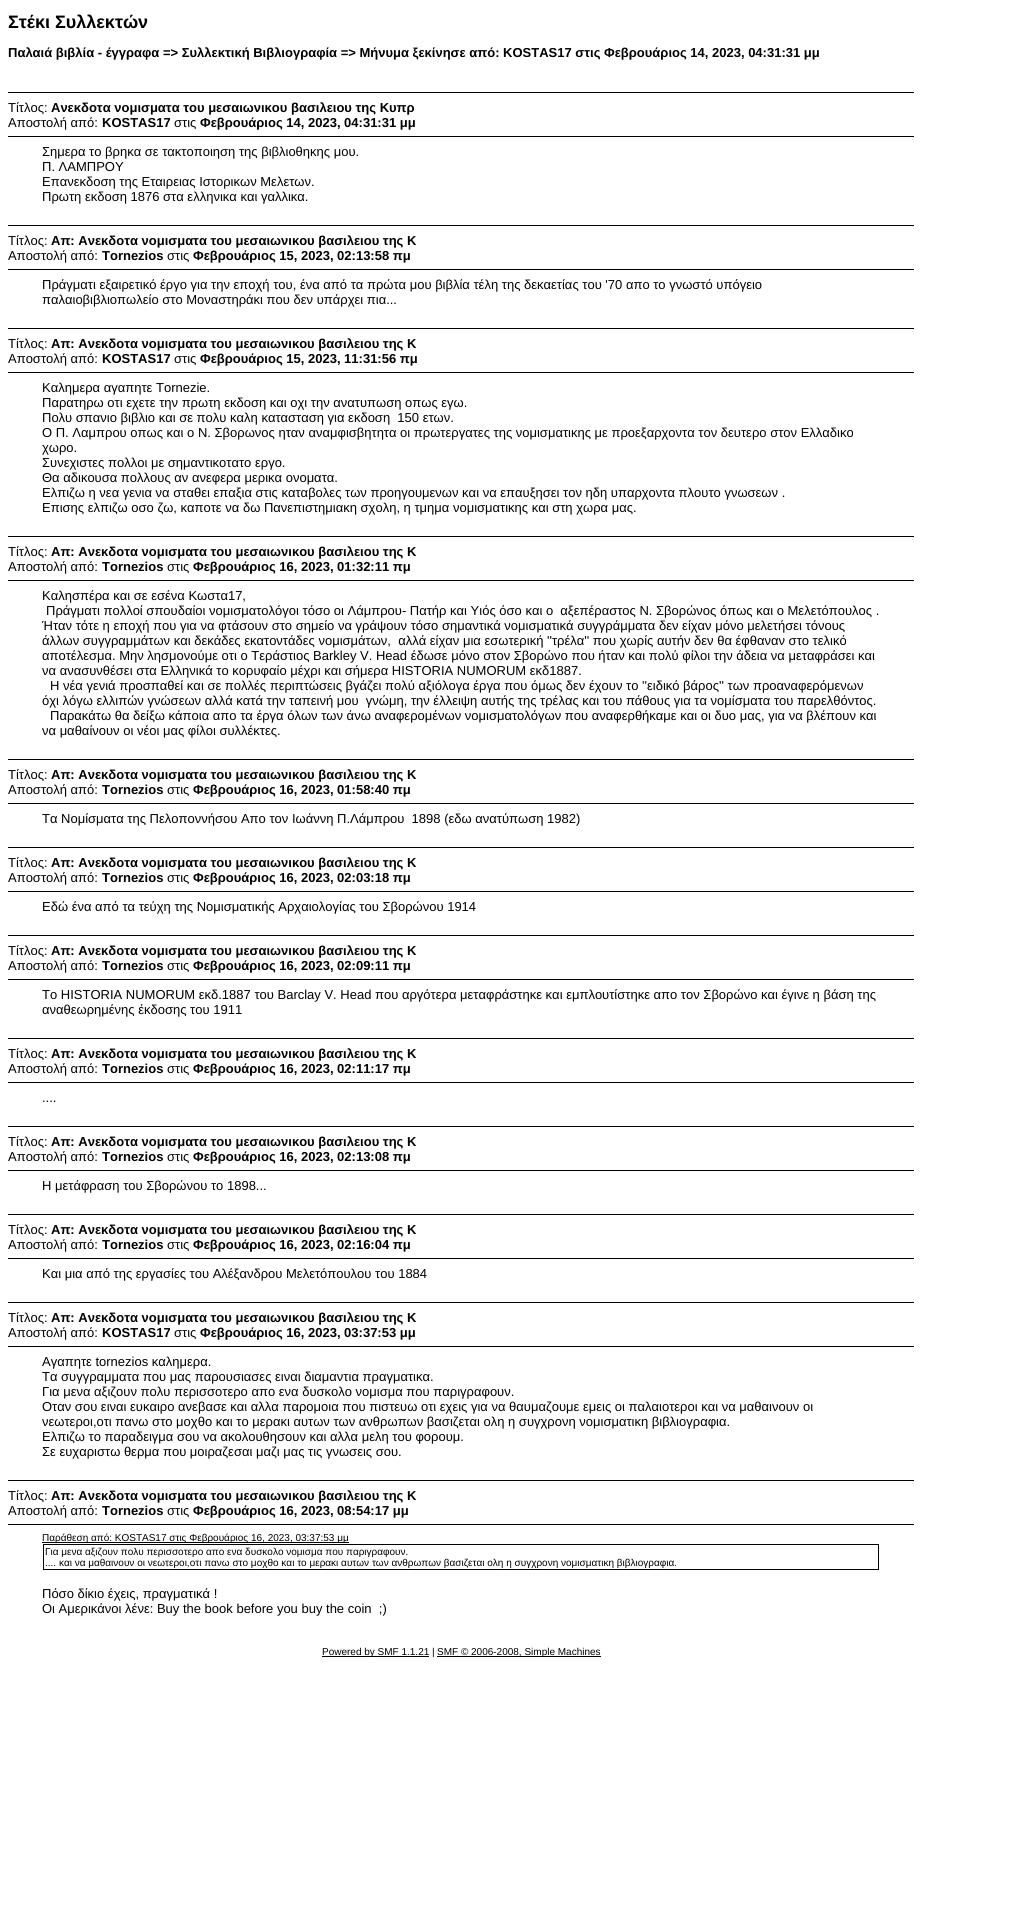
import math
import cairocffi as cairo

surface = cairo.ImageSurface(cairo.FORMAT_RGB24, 1023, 1927)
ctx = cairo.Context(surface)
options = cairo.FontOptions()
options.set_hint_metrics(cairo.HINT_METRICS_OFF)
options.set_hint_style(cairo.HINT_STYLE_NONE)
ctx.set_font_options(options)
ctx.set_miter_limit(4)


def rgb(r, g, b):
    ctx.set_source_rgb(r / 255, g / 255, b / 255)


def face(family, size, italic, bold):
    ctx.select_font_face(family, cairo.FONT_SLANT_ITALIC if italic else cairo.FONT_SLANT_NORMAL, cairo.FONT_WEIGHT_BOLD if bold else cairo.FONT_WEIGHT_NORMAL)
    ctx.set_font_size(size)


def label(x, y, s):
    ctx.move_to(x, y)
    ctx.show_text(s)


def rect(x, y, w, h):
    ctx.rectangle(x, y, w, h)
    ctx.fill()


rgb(255, 255, 255)
ctx.paint()
face('Liberation Sans', 18, 0, 1)
rgb(0, 0, 0)
label(8, 28, 'Στέκι Συλλεκτών')
face('Liberation Sans', 13, 0, 1)
label(8, 57, 'Παλαιά βιβλία - έγγραφα => Συλλεκτική Βιβλιογραφία => Μήνυμα ξεκίνησε από: KOSTAS17 στις Φεβρουάριος 14, 2023, 04:31:31 μμ')
rect(8, 92, 906, 1)
face('Liberation Sans', 13, 0, 0)
label(8, 112, 'Τίτλος:')
face('Liberation Sans', 13, 0, 1)
label(51, 112, 'Ανεκδοτα νομισματα του μεσαιωνικου βασιλειου της Κυπρ')
face('Liberation Sans', 13, 0, 0)
label(8, 127, 'Αποστολή από:')
face('Liberation Sans', 13, 0, 1)
label(102, 127, 'KOSTAS17')
face('Liberation Sans', 13, 0, 0)
label(174, 127, 'στις')
face('Liberation Sans', 13, 0, 1)
label(200, 127, 'Φεβρουάριος 14, 2023, 04:31:31 μμ')
rect(8, 136, 906, 1)
face('Liberation Sans', 13, 0, 0)
label(42, 156, 'Σημερα το βρηκα σε τακτοποιηση της βιβλιοθηκης μου.')
label(42, 171, 'Π. ΛΑΜΠΡΟΥ')
label(42, 186, 'Επανεκδοση της Εταιρειας Ιστορικων Μελετων.')
label(42, 201, 'Πρωτη εκδοση 1876 στα ελληνικα και γαλλικα.')
rect(8, 225, 906, 1)
label(8, 245, 'Τίτλος:')
face('Liberation Sans', 13, 0, 1)
label(51, 245, 'Απ: Ανεκδοτα νομισματα του μεσαιωνικου βασιλειου της Κ')
face('Liberation Sans', 13, 0, 0)
label(8, 260, 'Αποστολή από:')
face('Liberation Sans', 13, 0, 1)
label(102, 260, 'Tornezios')
face('Liberation Sans', 13, 0, 0)
label(167, 260, 'στις')
face('Liberation Sans', 13, 0, 1)
label(193, 260, 'Φεβρουάριος 15, 2023, 02:13:58 πμ')
rect(8, 269, 906, 1)
face('Liberation Sans', 13, 0, 0)
label(42, 289, 'Πράγματι εξαιρετικό έργο για την εποχή του, ένα από τα πρώτα μου βιβλία τέλη της δεκαετίας του \'70 απο το γνωστό υπόγειο')
label(42, 304, 'παλαιοβιβλιοπωλείο στο Μοναστηράκι που δεν υπάρχει πια...')
rect(8, 328, 906, 1)
label(8, 348, 'Τίτλος:')
face('Liberation Sans', 13, 0, 1)
label(51, 348, 'Απ: Ανεκδοτα νομισματα του μεσαιωνικου βασιλειου της Κ')
face('Liberation Sans', 13, 0, 0)
label(8, 363, 'Αποστολή από:')
face('Liberation Sans', 13, 0, 1)
label(102, 363, 'KOSTAS17')
face('Liberation Sans', 13, 0, 0)
label(174, 363, 'στις')
face('Liberation Sans', 13, 0, 1)
label(200, 363, 'Φεβρουάριος 15, 2023, 11:31:56 πμ')
rect(8, 372, 906, 1)
face('Liberation Sans', 13, 0, 0)
label(42, 392, 'Καλημερα αγαπητε Tornezie.')
label(42, 407, 'Παρατηρω οτι εχετε την πρωτη εκδοση και οχι την ανατυπωση οπως εγω.')
label(42, 422, 'Πολυ σπανιο βιβλιο και σε πολυ καλη κατασταση για εκδοση  150 ετων.')
label(42, 437, 'Ο Π. Λαμπρου οπως και ο Ν. Σβορωνος ηταν αναμφισβητητα οι πρωτεργατες της νομισματικης με προεξαρχοντα τον δευτερο στον Ελλαδικο')
label(42, 452, 'χωρο.')
label(42, 467, 'Συνεχιστες πολλοι με σημαντικοτατο εργο.')
label(42, 482, 'Θα αδικουσα πολλους αν ανεφερα μερικα ονοματα.')
label(42, 497, 'Ελπιζω η νεα γενια να σταθει επαξια στις καταβολες των προηγουμενων και να επαυξησει τον ηδη υπαρχοντα πλουτο γνωσεων .')
label(42, 512, 'Επισης ελπιζω οσο ζω, καποτε να δω Πανεπιστημιακη σχολη, η τμημα νομισματικης και στη χωρα μας.')
rect(8, 536, 906, 1)
label(8, 556, 'Τίτλος:')
face('Liberation Sans', 13, 0, 1)
label(51, 556, 'Απ: Ανεκδοτα νομισματα του μεσαιωνικου βασιλειου της Κ')
face('Liberation Sans', 13, 0, 0)
label(8, 571, 'Αποστολή από:')
face('Liberation Sans', 13, 0, 1)
label(102, 571, 'Tornezios')
face('Liberation Sans', 13, 0, 0)
label(167, 571, 'στις')
face('Liberation Sans', 13, 0, 1)
label(193, 571, 'Φεβρουάριος 16, 2023, 01:32:11 πμ')
rect(8, 580, 906, 1)
face('Liberation Sans', 13, 0, 0)
label(42, 600, 'Καλησπέρα και σε εσένα Κωστα17,')
label(46, 615, 'Πράγματι πολλοί σπουδαίοι νομισματολόγοι τόσο οι Λάμπρου- Πατήρ και Υιός όσο και ο  αξεπέραστος Ν. Σβορώνος όπως και ο Μελετόπουλος .')
label(42, 630, 'Ήταν τότε η εποχή που για να φτάσουν στο σημείο να γράψουν τόσο σημαντικά νομισματικά συγγράμματα δεν είχαν μόνο μελετήσει τόνους')
label(42, 645, 'άλλων συγγραμμάτων και δεκάδες εκατοντάδες νομισμάτων,  αλλά είχαν μια εσωτερική \'\'τρέλα\'\' που χωρίς αυτήν δεν θα έφθαναν στο τελικό')
label(42, 660, 'αποτέλεσμα. Μην λησμονούμε οτι ο Τεράστιος Barkley V. Head έδωσε μόνο στον Σβορώνο που ήταν και πολύ φίλοι την άδεια να μεταφράσει και')
label(42, 675, 'να ανασυνθέσει στα Ελληνικά το κορυφαίο μέχρι και σήμερα HISTORIA NUMORUM εκδ1887.')
label(50, 690, 'Η νέα γενιά προσπαθεί και σε πολλές περιπτώσεις βγάζει πολύ αξιόλογα έργα που όμως δεν έχουν το \'\'ειδικό βάρος\'\' των προαναφερόμενων')
label(42, 705, 'όχι λόγω ελλιπών γνώσεων αλλά κατά την ταπεινή μου  γνώμη, την έλλειψη αυτής της τρέλας και του πάθους για τα νομίσματα του παρελθόντος.')
label(50, 720, 'Παρακάτω θα δείξω κάποια απο τα έργα όλων των άνω αναφερομένων νομισματολόγων που αναφερθήκαμε και οι δυο μας, για να βλέπουν και')
label(42, 735, 'να μαθαίνουν οι νέοι μας φίλοι συλλέκτες.')
rect(8, 759, 906, 1)
label(8, 779, 'Τίτλος:')
face('Liberation Sans', 13, 0, 1)
label(51, 779, 'Απ: Ανεκδοτα νομισματα του μεσαιωνικου βασιλειου της Κ')
face('Liberation Sans', 13, 0, 0)
label(8, 794, 'Αποστολή από:')
face('Liberation Sans', 13, 0, 1)
label(102, 794, 'Tornezios')
face('Liberation Sans', 13, 0, 0)
label(167, 794, 'στις')
face('Liberation Sans', 13, 0, 1)
label(193, 794, 'Φεβρουάριος 16, 2023, 01:58:40 πμ')
rect(8, 803, 906, 1)
face('Liberation Sans', 13, 0, 0)
label(42, 823, 'Τα Νομίσματα της Πελοποννήσου Απο τον Ιωάννη Π.Λάμπρου  1898 (εδω ανατύπωση 1982)')
rect(8, 847, 906, 1)
label(8, 867, 'Τίτλος:')
face('Liberation Sans', 13, 0, 1)
label(51, 867, 'Απ: Ανεκδοτα νομισματα του μεσαιωνικου βασιλειου της Κ')
face('Liberation Sans', 13, 0, 0)
label(8, 882, 'Αποστολή από:')
face('Liberation Sans', 13, 0, 1)
label(102, 882, 'Tornezios')
face('Liberation Sans', 13, 0, 0)
label(167, 882, 'στις')
face('Liberation Sans', 13, 0, 1)
label(193, 882, 'Φεβρουάριος 16, 2023, 02:03:18 πμ')
rect(8, 891, 906, 1)
face('Liberation Sans', 13, 0, 0)
label(42, 911, 'Εδώ ένα από τα τεύχη της Νομισματικής Αρχαιολογίας του Σβορώνου 1914')
rect(8, 935, 906, 1)
label(8, 955, 'Τίτλος:')
face('Liberation Sans', 13, 0, 1)
label(51, 955, 'Απ: Ανεκδοτα νομισματα του μεσαιωνικου βασιλειου της Κ')
face('Liberation Sans', 13, 0, 0)
label(8, 970, 'Αποστολή από:')
face('Liberation Sans', 13, 0, 1)
label(102, 970, 'Tornezios')
face('Liberation Sans', 13, 0, 0)
label(167, 970, 'στις')
face('Liberation Sans', 13, 0, 1)
label(193, 970, 'Φεβρουάριος 16, 2023, 02:09:11 πμ')
rect(8, 979, 906, 1)
face('Liberation Sans', 13, 0, 0)
label(42, 999, 'Το HISTORIA NUMORUM εκδ.1887 του Barclay V. Head που αργότερα μεταφράστηκε και εμπλουτίστηκε απο τον Σβορώνο και έγινε η βάση της')
label(42, 1014, 'αναθεωρημένης έκδοσης του 1911')
rect(8, 1038, 906, 1)
label(8, 1058, 'Τίτλος:')
face('Liberation Sans', 13, 0, 1)
label(51, 1058, 'Απ: Ανεκδοτα νομισματα του μεσαιωνικου βασιλειου της Κ')
face('Liberation Sans', 13, 0, 0)
label(8, 1073, 'Αποστολή από:')
face('Liberation Sans', 13, 0, 1)
label(102, 1073, 'Tornezios')
face('Liberation Sans', 13, 0, 0)
label(167, 1073, 'στις')
face('Liberation Sans', 13, 0, 1)
label(193, 1073, 'Φεβρουάριος 16, 2023, 02:11:17 πμ')
rect(8, 1082, 906, 1)
face('Liberation Sans', 13, 0, 0)
label(42, 1102, '....')
rect(8, 1126, 906, 1)
label(8, 1146, 'Τίτλος:')
face('Liberation Sans', 13, 0, 1)
label(51, 1146, 'Απ: Ανεκδοτα νομισματα του μεσαιωνικου βασιλειου της Κ')
face('Liberation Sans', 13, 0, 0)
label(8, 1161, 'Αποστολή από:')
face('Liberation Sans', 13, 0, 1)
label(102, 1161, 'Tornezios')
face('Liberation Sans', 13, 0, 0)
label(167, 1161, 'στις')
face('Liberation Sans', 13, 0, 1)
label(193, 1161, 'Φεβρουάριος 16, 2023, 02:13:08 πμ')
rect(8, 1170, 906, 1)
face('Liberation Sans', 13, 0, 0)
label(42, 1190, 'Η μετάφραση του Σβορώνου το 1898...')
rect(8, 1214, 906, 1)
label(8, 1234, 'Τίτλος:')
face('Liberation Sans', 13, 0, 1)
label(51, 1234, 'Απ: Ανεκδοτα νομισματα του μεσαιωνικου βασιλειου της Κ')
face('Liberation Sans', 13, 0, 0)
label(8, 1249, 'Αποστολή από:')
face('Liberation Sans', 13, 0, 1)
label(102, 1249, 'Tornezios')
face('Liberation Sans', 13, 0, 0)
label(167, 1249, 'στις')
face('Liberation Sans', 13, 0, 1)
label(193, 1249, 'Φεβρουάριος 16, 2023, 02:16:04 πμ')
rect(8, 1258, 906, 1)
face('Liberation Sans', 13, 0, 0)
label(42, 1278, 'Και μια από της εργασίες του Αλέξανδρου Μελετόπουλου του 1884')
rect(8, 1302, 906, 1)
label(8, 1322, 'Τίτλος:')
face('Liberation Sans', 13, 0, 1)
label(51, 1322, 'Απ: Ανεκδοτα νομισματα του μεσαιωνικου βασιλειου της Κ')
face('Liberation Sans', 13, 0, 0)
label(8, 1337, 'Αποστολή από:')
face('Liberation Sans', 13, 0, 1)
label(102, 1337, 'KOSTAS17')
face('Liberation Sans', 13, 0, 0)
label(174, 1337, 'στις')
face('Liberation Sans', 13, 0, 1)
label(200, 1337, 'Φεβρουάριος 16, 2023, 03:37:53 μμ')
rect(8, 1346, 906, 1)
face('Liberation Sans', 13, 0, 0)
label(42, 1366, 'Αγαπητε tornezios καλημερα.')
label(42, 1381, 'Τα συγγραμματα που μας παρουσιασες ειναι διαμαντια πραγματικα.')
label(42, 1396, 'Για μενα αξιζουν πολυ περισσοτερο απο ενα δυσκολο νομισμα που παριγραφουν.')
label(42, 1411, 'Οταν σου ειναι ευκαιρο ανεβασε και αλλα παρομοια που πιστευω οτι εχεις για να θαυμαζουμε εμεις οι παλαιοτεροι και να μαθαινουν οι')
label(42, 1426, 'νεωτεροι,οτι πανω στο μοχθο και το μερακι αυτων των ανθρωπων βασιζεται ολη η συγχρονη νομισματικη βιβλιογραφια.')
label(42, 1441, 'Ελπιζω το παραδειγμα σου να ακολουθησουν και αλλα μελη του φορουμ.')
label(42, 1456, 'Σε ευχαριστω θερμα που μοιραζεσαι μαζι μας τις γνωσεις σου.')
rect(8, 1480, 906, 1)
label(8, 1500, 'Τίτλος:')
face('Liberation Sans', 13, 0, 1)
label(51, 1500, 'Απ: Ανεκδοτα νομισματα του μεσαιωνικου βασιλειου της Κ')
face('Liberation Sans', 13, 0, 0)
label(8, 1515, 'Αποστολή από:')
face('Liberation Sans', 13, 0, 1)
label(102, 1515, 'Tornezios')
face('Liberation Sans', 13, 0, 0)
label(167, 1515, 'στις')
face('Liberation Sans', 13, 0, 1)
label(193, 1515, 'Φεβρουάριος 16, 2023, 08:54:17 μμ')
rect(8, 1524, 906, 1)
rect(42, 1542, 307, 1)
face('Liberation Sans', 10, 0, 0)
label(42, 1541, 'Παράθεση από: KOSTAS17 στις Φεβρουάριος 16, 2023, 03:37:53 μμ')
ctx.rectangle(43.5, 1544.5, 835, 25)
ctx.set_line_width(1)
ctx.stroke()
label(45, 1555, 'Για μενα αξιζουν πολυ περισσοτερο απο ενα δυσκολο νομισμα που παριγραφουν.')
label(45, 1566, '.... και να μαθαινουν οι νεωτεροι,οτι πανω στο μοχθο και το μερακι αυτων των ανθρωπων βασιζεται ολη η συγχρονη νομισματικη βιβλιογραφια.')
face('Liberation Sans', 13, 0, 0)
label(42, 1598, 'Πόσο δίκιο έχεις, πραγματικά !')
label(42, 1613, 'Οι Αμερικάνοι λένε: Buy the book before you buy the coin  ;)')
rect(322, 1656, 107, 1)
face('Liberation Sans', 10, 0, 0)
label(322, 1655, 'Powered by SMF 1.1.21 |')
rect(437, 1656, 164, 1)
label(437, 1655, 'SMF © 2006-2008, Simple Machines')
surface.write_to_png('render.png')
